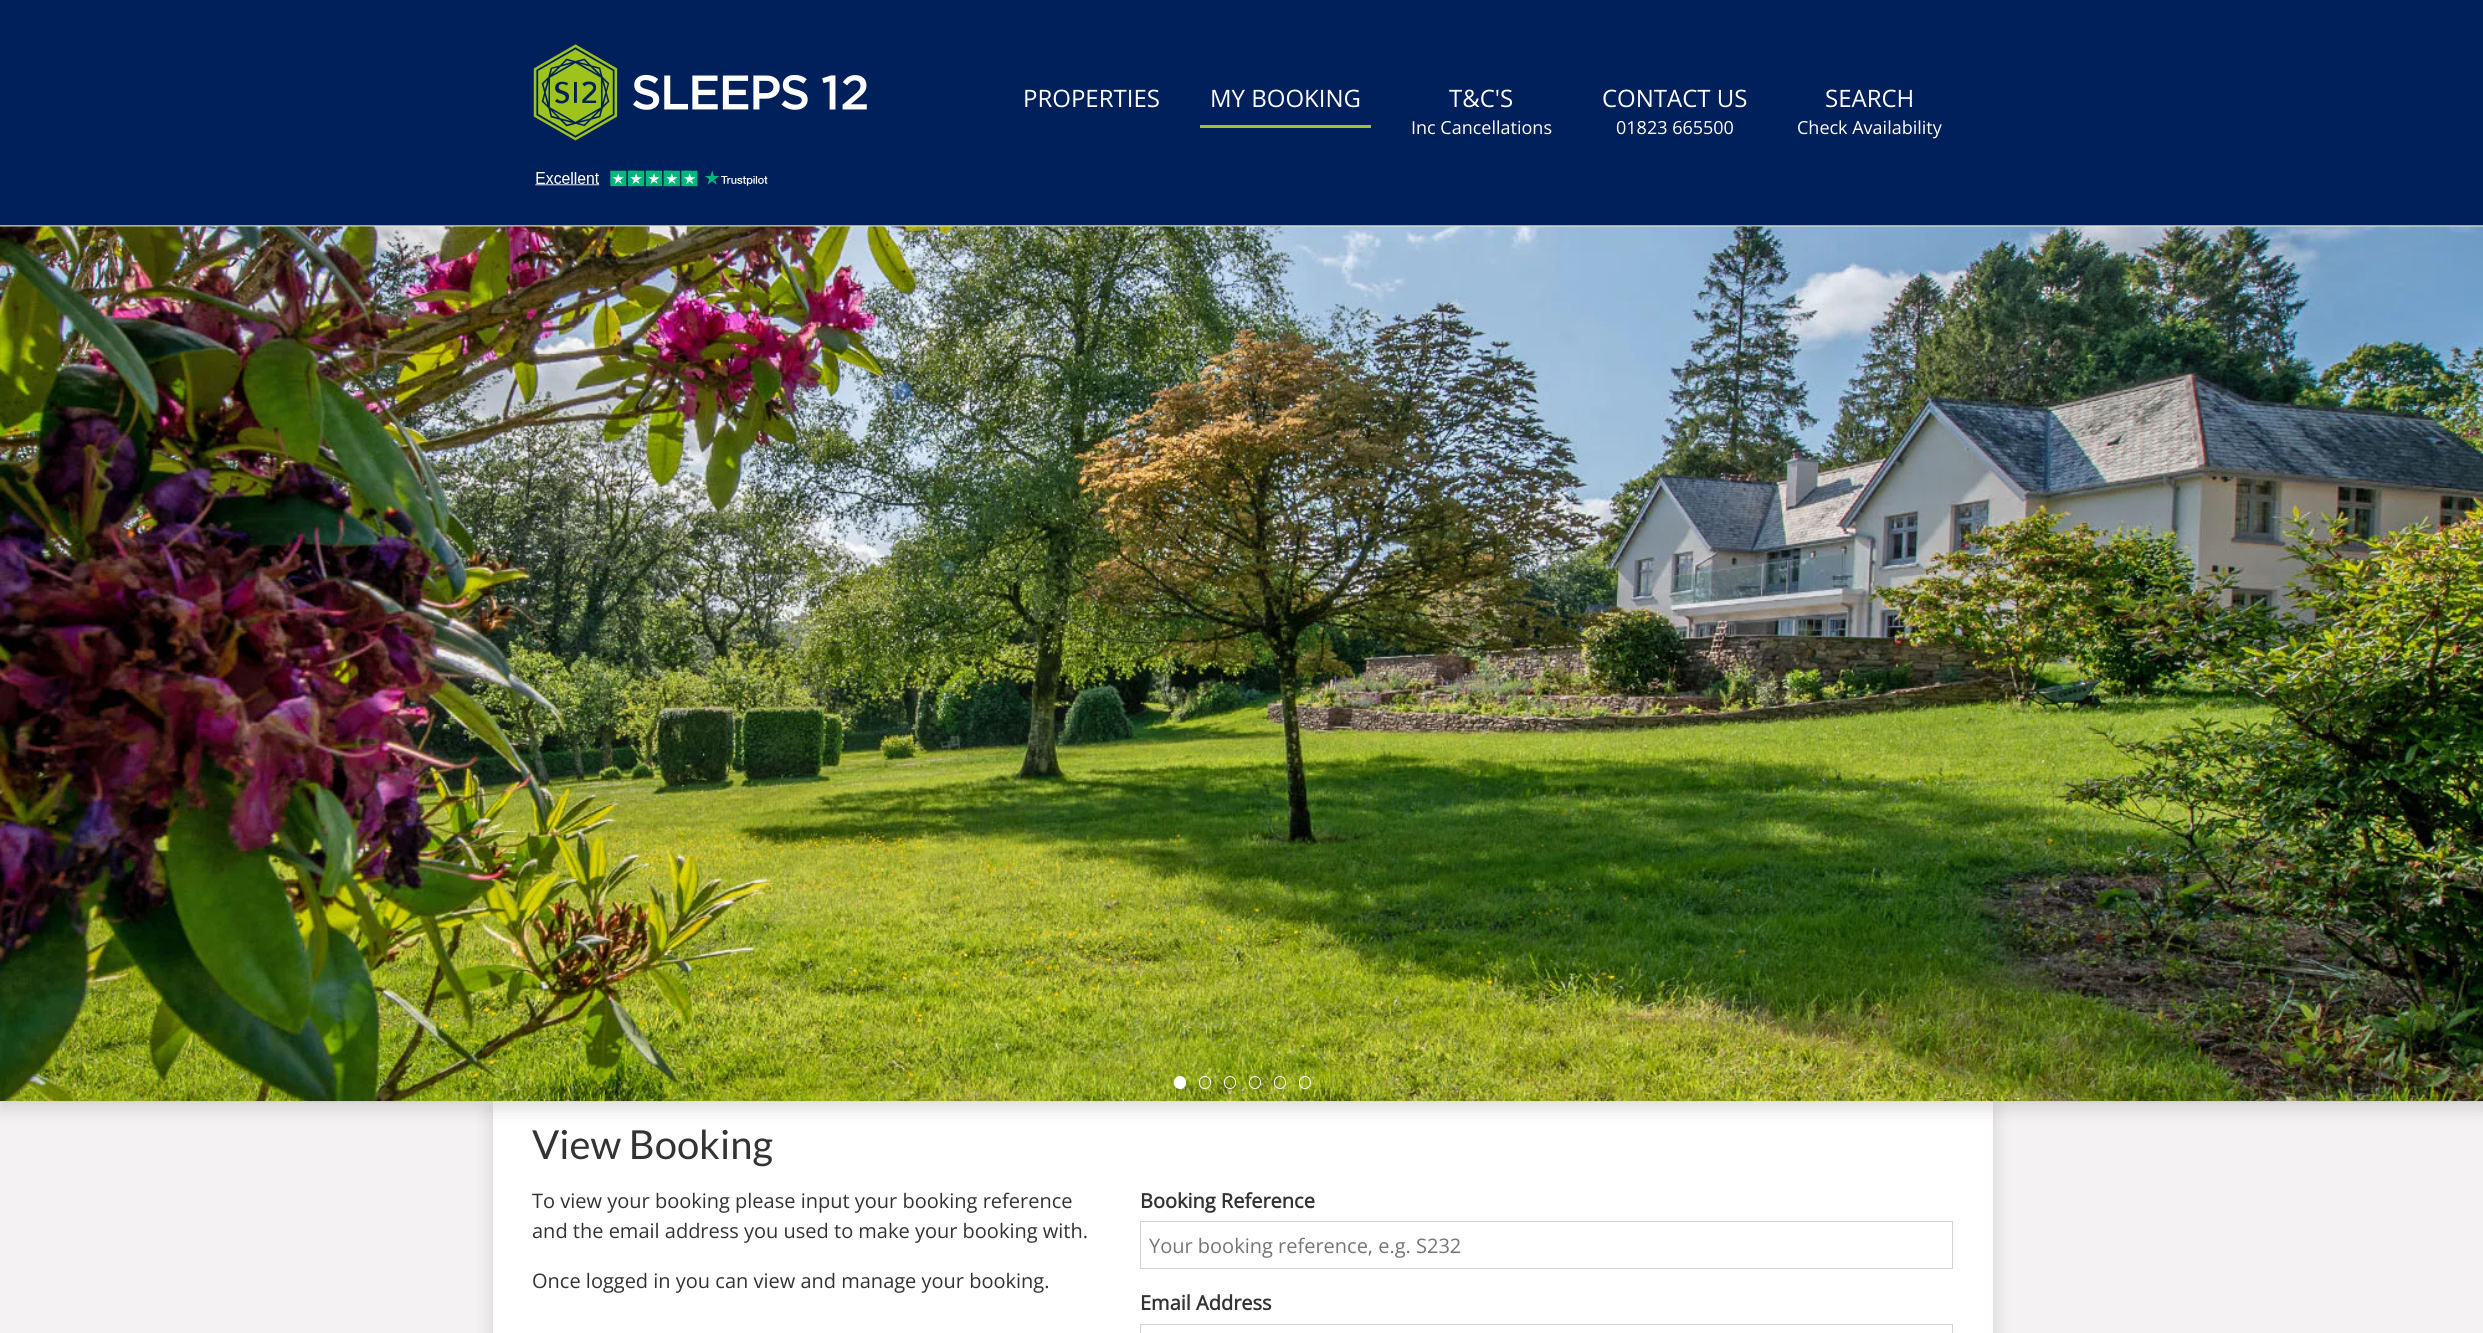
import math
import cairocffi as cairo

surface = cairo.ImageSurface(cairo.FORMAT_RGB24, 2483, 1333)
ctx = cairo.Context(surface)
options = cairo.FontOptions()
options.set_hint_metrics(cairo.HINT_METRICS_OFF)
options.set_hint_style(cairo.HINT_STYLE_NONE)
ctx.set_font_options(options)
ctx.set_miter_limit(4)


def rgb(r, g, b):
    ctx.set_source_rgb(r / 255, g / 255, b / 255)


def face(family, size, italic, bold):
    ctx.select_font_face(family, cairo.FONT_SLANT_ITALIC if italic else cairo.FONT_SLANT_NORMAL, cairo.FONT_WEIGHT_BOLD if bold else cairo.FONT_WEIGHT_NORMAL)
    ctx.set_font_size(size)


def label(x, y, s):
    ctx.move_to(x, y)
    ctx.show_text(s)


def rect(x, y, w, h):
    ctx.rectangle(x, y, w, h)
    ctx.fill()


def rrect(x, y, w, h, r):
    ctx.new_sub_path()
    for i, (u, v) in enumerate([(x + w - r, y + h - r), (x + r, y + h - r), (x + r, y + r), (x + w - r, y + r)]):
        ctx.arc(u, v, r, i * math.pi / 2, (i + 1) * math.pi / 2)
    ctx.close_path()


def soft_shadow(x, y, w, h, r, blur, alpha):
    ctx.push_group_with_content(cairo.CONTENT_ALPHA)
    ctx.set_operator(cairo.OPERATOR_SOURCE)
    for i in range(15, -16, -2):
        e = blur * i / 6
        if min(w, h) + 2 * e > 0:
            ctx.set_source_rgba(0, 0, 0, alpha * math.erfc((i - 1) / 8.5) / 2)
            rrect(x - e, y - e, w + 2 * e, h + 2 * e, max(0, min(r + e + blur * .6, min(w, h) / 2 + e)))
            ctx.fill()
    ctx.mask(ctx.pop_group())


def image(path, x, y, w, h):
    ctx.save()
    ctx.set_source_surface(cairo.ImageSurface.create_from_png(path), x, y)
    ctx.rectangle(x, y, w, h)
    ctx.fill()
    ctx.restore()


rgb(244, 242, 242)
ctx.paint()
rgb(0, 0, 0)
soft_shadow(493, 1108, 1500, 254, 0, 9.5, 0.15)
rgb(255, 255, 255)
rect(493, 1101, 1500, 232)
rgb(0, 0, 0)
soft_shadow(0, 233, 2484, 875, 0, 9.5, 0.15)
rgb(0, 32, 92)
rect(0, 0, 2483, 225)
rgb(162, 192, 60)
rect(0, 225, 2483, 1)
image('image0.png', 533, 44, 334, 97)
image('image1.png', 535, 170, 233, 17)
face('Open Sans', 24, 0, 0)
rgb(255, 255, 255)
label(1023, 107, 'PROPERTIES')
rgb(162, 192, 60)
rect(1200, 125, 171, 3)
rgb(255, 255, 255)
label(1210, 107, 'MY BOOKING')
label(1449, 107, 'T&C\'S')
face('Open Sans', 18, 0, 0)
label(1411, 134, 'Inc Cancellations')
face('Open Sans', 24, 0, 0)
label(1602, 107, 'CONTACT US')
face('Open Sans', 18, 0, 0)
label(1616, 134, '01823 665500')
face('Open Sans', 24, 0, 0)
label(1825, 107, 'SEARCH')
face('Open Sans', 18, 0, 0)
label(1797, 134, 'Check Availability')
image('image2.png', 0, 226, 2483, 876)
rrect(1174.5, 1076.5, 11, 12, 5.5)
ctx.fill_preserve()
ctx.set_line_width(1)
ctx.stroke()
rrect(1199.5, 1076.5, 11, 12, 5.5)
ctx.stroke()
rrect(1224.5, 1076.5, 11, 12, 5.5)
ctx.stroke()
rrect(1249.5, 1076.5, 11, 12, 5.5)
ctx.stroke()
rrect(1274.5, 1076.5, 11, 12, 5.5)
ctx.stroke()
rrect(1299.5, 1076.5, 11, 12, 5.5)
ctx.stroke()
face('Lato', 40, 0, 0)
rgb(51, 51, 51)
label(532, 1159, 'View Booking')
face('Open Sans', 20, 0, 0)
label(532, 1208, 'To view your booking please input your booking reference')
label(532, 1238, 'and the email address you used to make your booking with.')
label(532, 1288, 'Once logged in you can view and manage your booking.')
face('Open Sans', 20, 0, 1)
label(1140, 1208, 'Booking Reference')
ctx.rectangle(1140.5, 1221.5, 812, 47)
rgb(210, 210, 210)
ctx.stroke()
face('Open Sans', 20, 0, 0)
rgb(117, 117, 117)
label(1149, 1253, 'Your booking reference, e.g. S232')
face('Open Sans', 20, 0, 1)
rgb(51, 51, 51)
label(1140, 1310, 'Email Address')
ctx.rectangle(1140.5, 1324.5, 812, 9)
rgb(210, 210, 210)
ctx.stroke()
surface.write_to_png('render.png')
